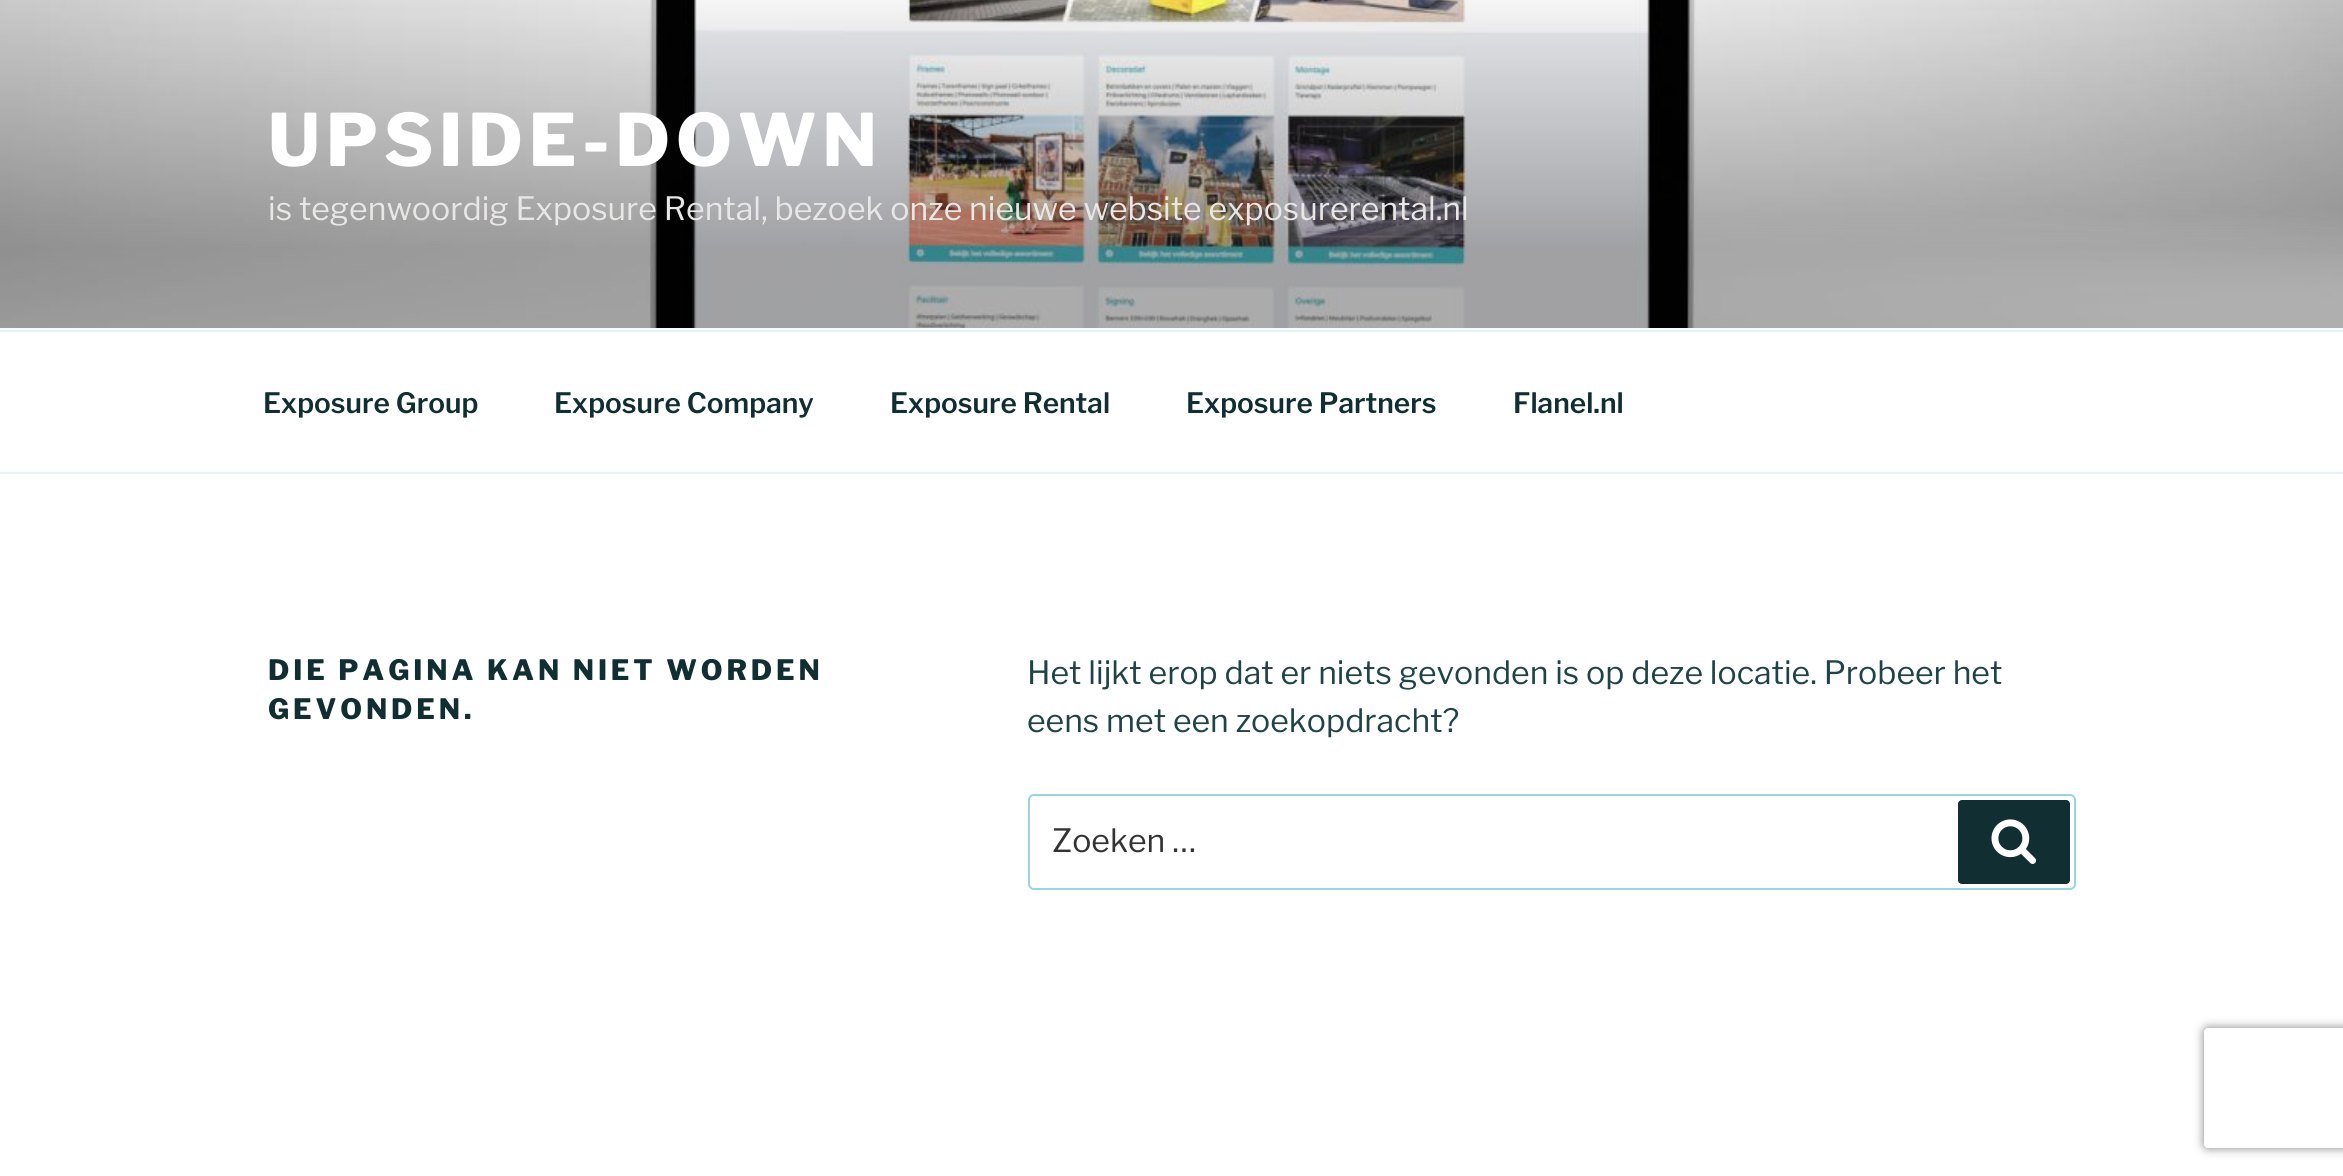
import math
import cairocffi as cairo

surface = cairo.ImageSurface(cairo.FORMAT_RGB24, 2343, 1176)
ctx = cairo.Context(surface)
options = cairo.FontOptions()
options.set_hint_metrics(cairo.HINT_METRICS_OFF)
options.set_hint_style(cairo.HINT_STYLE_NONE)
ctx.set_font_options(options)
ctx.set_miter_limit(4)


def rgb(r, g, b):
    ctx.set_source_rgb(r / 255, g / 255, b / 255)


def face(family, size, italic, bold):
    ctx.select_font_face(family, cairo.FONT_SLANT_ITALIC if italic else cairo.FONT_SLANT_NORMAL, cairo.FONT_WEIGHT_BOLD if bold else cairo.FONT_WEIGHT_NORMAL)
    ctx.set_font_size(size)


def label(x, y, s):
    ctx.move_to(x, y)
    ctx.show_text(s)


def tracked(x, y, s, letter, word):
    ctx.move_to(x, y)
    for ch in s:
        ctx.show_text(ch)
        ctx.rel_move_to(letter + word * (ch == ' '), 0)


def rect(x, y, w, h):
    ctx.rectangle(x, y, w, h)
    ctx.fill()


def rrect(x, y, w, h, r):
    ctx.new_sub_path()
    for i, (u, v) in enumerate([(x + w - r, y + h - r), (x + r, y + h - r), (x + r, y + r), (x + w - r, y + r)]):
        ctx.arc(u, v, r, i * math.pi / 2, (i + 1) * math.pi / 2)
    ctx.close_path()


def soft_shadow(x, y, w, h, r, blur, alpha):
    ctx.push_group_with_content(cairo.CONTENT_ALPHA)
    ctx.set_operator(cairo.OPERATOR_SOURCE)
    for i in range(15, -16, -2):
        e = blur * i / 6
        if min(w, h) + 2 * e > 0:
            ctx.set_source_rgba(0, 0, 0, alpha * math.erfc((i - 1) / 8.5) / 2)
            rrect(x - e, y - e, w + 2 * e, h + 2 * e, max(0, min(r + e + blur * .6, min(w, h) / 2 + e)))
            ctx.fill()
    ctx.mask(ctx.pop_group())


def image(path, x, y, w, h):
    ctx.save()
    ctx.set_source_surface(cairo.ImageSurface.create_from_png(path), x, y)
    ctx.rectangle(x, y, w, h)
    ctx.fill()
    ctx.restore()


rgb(255, 255, 255)
ctx.paint()
rgb(247, 252, 252)
rect(0, 328, 2343, 2)
image('image0.png', 0, 0, 2343, 328)
face('Libre Franklin Thin', 72, 0, 0)
rgb(255, 255, 255)
tracked(268, 166, 'UPSIDE-DOWN', 5.75, 0)
face('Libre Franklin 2 Thin', 32, 0, 0)
rgb(232, 231, 230)
label(268, 220, 'is tegenwoordig Exposure Rental, bezoek onze nieuwe website exposurerental.nl')
rgb(228, 244, 246)
rect(0, 330, 2343, 2)
rect(0, 472, 2343, 2)
face('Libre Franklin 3 Thin', 28, 0, 0)
rgb(17, 46, 50)
label(263, 413, 'Exposure Group')
label(554, 413, 'Exposure Company')
label(890, 413, 'Exposure Rental')
label(1186, 413, 'Exposure Partners')
label(1513, 413, 'Flanel.nl')
face('Libre Franklin Thin', 28, 0, 0)
tracked(268, 680, 'DIE PAGINA KAN NIET WORDEN', 3.9, 0)
tracked(268, 719, 'GEVONDEN.', 3.9, 0)
face('Libre Franklin 2 Thin', 32, 0, 0)
rgb(31, 67, 71)
label(1027, 684, 'Het lijkt erop dat er niets gevonden is op deze locatie. Probeer het')
label(1027, 732, 'eens met een zoekopdracht?')
rrect(1029, 795, 1046, 94, 5)
rgb(152, 214, 221)
ctx.stroke()
rgb(51, 51, 51)
label(1052, 852, 'Zoeken …')
rgb(17, 46, 50)
rrect(1958, 800, 112, 84, 4)
ctx.fill()
image('image1.png', 1991, 819, 46, 45)
ctx.save()
ctx.set_fill_rule(cairo.FILL_RULE_EVEN_ODD)
ctx.new_path()
ctx.move_to(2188, 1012)
ctx.line_to(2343, 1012)
ctx.line_to(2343, 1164)
ctx.line_to(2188, 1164)
ctx.close_path()
ctx.move_to(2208, 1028)
ctx.line_to(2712, 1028)
ctx.curve_to(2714, 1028, 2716, 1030, 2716, 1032)
ctx.line_to(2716, 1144)
ctx.curve_to(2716, 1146, 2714, 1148, 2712, 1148)
ctx.line_to(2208, 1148)
ctx.curve_to(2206, 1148, 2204, 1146, 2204, 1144)
ctx.line_to(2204, 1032)
ctx.curve_to(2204, 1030, 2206, 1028, 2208, 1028)
ctx.close_path()
ctx.clip()
rgb(128, 128, 128)
soft_shadow(2204, 1028, 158, 120, 4, 5, 1)
ctx.restore()
surface.write_to_png('render.png')
